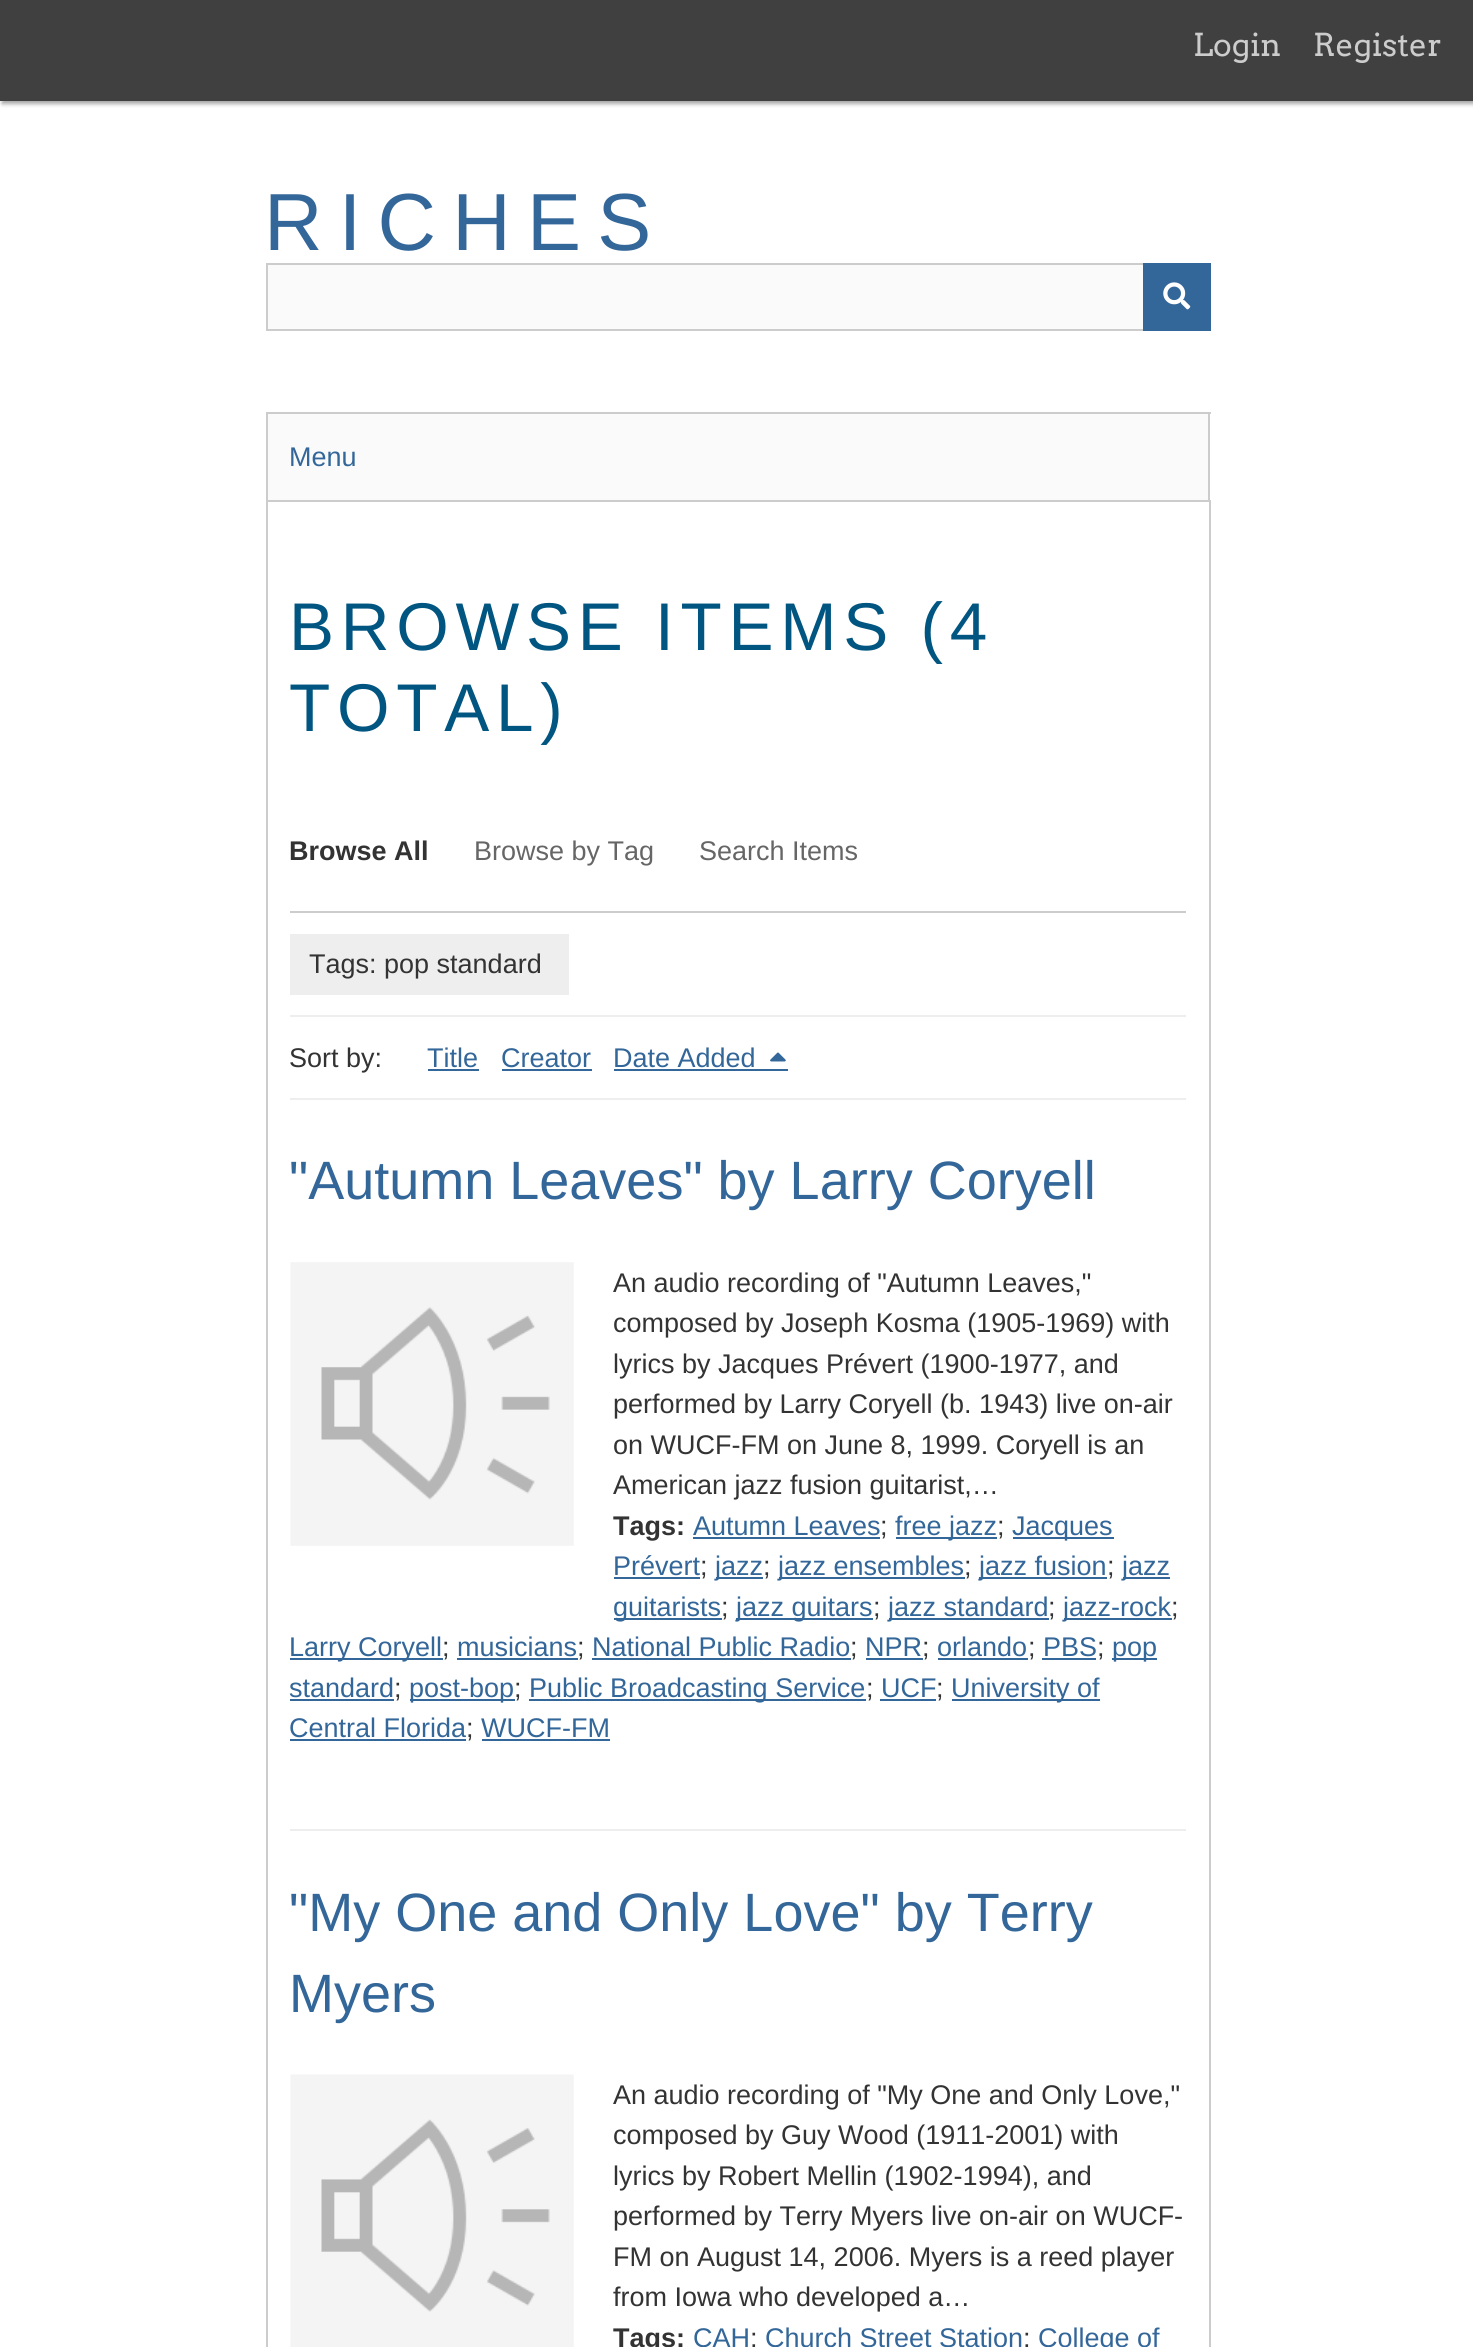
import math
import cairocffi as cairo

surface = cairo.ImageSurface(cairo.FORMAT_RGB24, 1473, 2347)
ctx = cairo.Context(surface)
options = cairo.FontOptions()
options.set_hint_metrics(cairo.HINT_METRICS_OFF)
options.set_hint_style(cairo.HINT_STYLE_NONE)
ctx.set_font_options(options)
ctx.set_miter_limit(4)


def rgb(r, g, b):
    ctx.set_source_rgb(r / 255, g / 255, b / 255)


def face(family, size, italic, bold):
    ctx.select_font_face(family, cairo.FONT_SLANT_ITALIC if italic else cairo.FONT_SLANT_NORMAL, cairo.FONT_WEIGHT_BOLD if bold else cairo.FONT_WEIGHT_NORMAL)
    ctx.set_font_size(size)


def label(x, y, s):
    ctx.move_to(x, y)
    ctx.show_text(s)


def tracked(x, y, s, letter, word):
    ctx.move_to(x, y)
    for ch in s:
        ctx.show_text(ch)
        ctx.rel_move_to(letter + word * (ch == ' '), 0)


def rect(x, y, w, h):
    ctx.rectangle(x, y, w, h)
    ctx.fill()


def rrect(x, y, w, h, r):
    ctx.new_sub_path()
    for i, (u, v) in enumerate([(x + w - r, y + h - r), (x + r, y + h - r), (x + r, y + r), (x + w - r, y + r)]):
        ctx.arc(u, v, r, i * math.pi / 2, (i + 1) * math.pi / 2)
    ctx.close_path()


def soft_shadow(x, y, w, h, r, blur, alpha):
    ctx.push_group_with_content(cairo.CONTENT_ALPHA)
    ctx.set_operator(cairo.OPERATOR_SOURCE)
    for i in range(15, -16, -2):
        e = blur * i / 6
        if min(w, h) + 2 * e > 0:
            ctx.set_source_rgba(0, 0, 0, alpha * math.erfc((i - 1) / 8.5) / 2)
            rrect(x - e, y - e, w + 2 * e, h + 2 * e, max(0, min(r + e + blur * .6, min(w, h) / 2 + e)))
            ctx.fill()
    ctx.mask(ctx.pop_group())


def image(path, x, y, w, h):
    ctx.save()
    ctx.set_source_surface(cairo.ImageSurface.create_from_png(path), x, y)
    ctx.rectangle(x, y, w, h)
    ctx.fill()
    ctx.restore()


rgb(255, 255, 255)
ctx.paint()
rgb(0, 0, 0)
soft_shadow(2, 2, 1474, 102, 0, 2, 0.35)
rgb(64, 64, 64)
rect(0, 0, 1473, 101)
face('Arvo', 31.5, 0, 0)
rgb(204, 204, 204)
label(1193, 56, 'Login')
label(1313, 56, 'Register')
face('Liberation Sans', 81, 0, 0)
rgb(51, 102, 153)
tracked(264, 250, 'RICHES', 16.25, 0)
rgb(250, 250, 250)
rect(268, 265, 875, 64)
ctx.rectangle(267, 264, 943, 66)
rgb(204, 204, 204)
ctx.stroke()
rgb(51, 102, 153)
rect(1143, 263, 68, 68)
image('image0.png', 1163, 282, 28, 28)
rgb(250, 250, 250)
rect(268, 414, 940, 86)
rgb(204, 204, 204)
rect(266, 412, 945, 2)
rect(1208, 412, 2, 88)
rect(266, 412, 2, 88)
face('Liberation Sans', 27, 0, 0)
rgb(51, 102, 153)
label(289, 466, 'Menu')
ctx.rectangle(267, 501, 943, 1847)
rgb(204, 204, 204)
ctx.stroke()
face('Liberation Sans', 67.5, 0, 0)
rgb(1, 85, 129)
tracked(289, 650, 'BROWSE ITEMS (4', 6.75, 0)
tracked(289, 731, 'TOTAL)', 6.75, 0)
rgb(204, 204, 204)
rect(290, 911, 896, 2)
face('Liberation Sans', 27, 0, 1)
rgb(51, 51, 51)
label(289, 860, 'Browse All')
face('Liberation Sans', 27, 0, 0)
rgb(102, 102, 102)
label(474, 860, 'Browse by Tag')
label(699, 860, 'Search Items')
rgb(238, 238, 238)
rect(290, 1015, 896, 2)
rect(290, 934, 279, 61)
rgb(51, 51, 51)
label(309, 973, 'Tags: pop standard')
label(289, 1067, 'Sort by:')
rgb(51, 102, 153)
label(427, 1067, 'Title')
rect(428, 1069, 51, 2)
label(501, 1067, 'Creator')
rect(502, 1069, 90, 2)
label(613, 1067, 'Date Added')
rect(614, 1069, 174, 2)
image('image1.png', 770, 1052, 16, 10)
rgb(238, 238, 238)
rect(290, 1098, 896, 2)
rect(290, 1829, 896, 2)
face('Liberation Sans', 54, 0, 0)
rgb(51, 102, 153)
label(289, 1199, '"Autumn Leaves" by Larry Coryell')
image('image2.png', 290, 1262, 284, 284)
face('Liberation Sans', 27, 0, 0)
rgb(51, 51, 51)
label(613, 1292, 'An audio recording of "Autumn Leaves,"')
label(613, 1332, 'composed by Joseph Kosma (1905-1969) with')
label(613, 1373, 'lyrics by Jacques Prévert (1900-1977, and')
label(613, 1413, 'performed by Larry Coryell (b. 1943) live on-air')
label(613, 1454, 'on WUCF-FM on June 8, 1999. Coryell is an')
label(613, 1494, 'American jazz fusion guitarist,…')
face('Liberation Sans', 27, 0, 1)
label(613, 1535, 'Tags:')
face('Liberation Sans', 27, 0, 0)
rgb(51, 102, 153)
label(693, 1535, 'Autumn Leaves')
rect(693, 1537, 187, 2)
rgb(51, 51, 51)
label(880, 1535, ';')
rgb(51, 102, 153)
rect(896, 1537, 101, 2)
label(895, 1535, 'free jazz')
rgb(51, 51, 51)
label(997, 1535, ';')
rgb(51, 102, 153)
rect(1013, 1537, 101, 2)
label(1012, 1535, 'Jacques')
label(613, 1575, 'Prévert')
rect(614, 1577, 86, 2)
rgb(51, 51, 51)
label(700, 1575, ';')
rgb(51, 102, 153)
rect(716, 1577, 47, 2)
label(715, 1575, 'jazz')
rgb(51, 51, 51)
label(763, 1575, ';')
rgb(51, 102, 153)
rect(779, 1577, 186, 2)
label(778, 1575, 'jazz ensembles')
rgb(51, 51, 51)
label(964, 1575, ';')
rgb(51, 102, 153)
rect(979, 1577, 128, 2)
label(979, 1575, 'jazz fusion')
rgb(51, 51, 51)
label(1107, 1575, ';')
rgb(51, 102, 153)
rect(1123, 1577, 47, 2)
label(1122, 1575, 'jazz')
rect(614, 1618, 108, 2)
label(613, 1616, 'guitarists')
rgb(51, 51, 51)
label(721, 1616, ';')
rgb(51, 102, 153)
rect(736, 1618, 137, 2)
label(736, 1616, 'jazz guitars')
rgb(51, 51, 51)
label(873, 1616, ';')
rgb(51, 102, 153)
rect(889, 1618, 160, 2)
label(888, 1616, 'jazz standard')
rgb(51, 51, 51)
label(1048, 1616, ';')
rgb(51, 102, 153)
rect(1064, 1618, 108, 2)
label(1063, 1616, 'jazz-rock')
rgb(51, 51, 51)
label(1171, 1616, ';')
rgb(51, 102, 153)
rect(290, 1658, 153, 2)
label(289, 1656, 'Larry Coryell')
rgb(51, 51, 51)
label(442, 1656, ';')
rgb(51, 102, 153)
label(457, 1656, 'musicians')
rect(457, 1658, 121, 2)
rgb(51, 51, 51)
label(577, 1656, ';')
rgb(51, 102, 153)
label(592, 1656, 'National Public Radio')
rect(592, 1658, 259, 2)
rgb(51, 51, 51)
label(850, 1656, ';')
rgb(51, 102, 153)
label(865, 1656, 'NPR')
rect(866, 1658, 57, 2)
rgb(51, 51, 51)
label(922, 1656, ';')
rgb(51, 102, 153)
label(937, 1656, 'orlando')
rect(938, 1658, 90, 2)
rgb(51, 51, 51)
label(1028, 1656, ';')
rgb(51, 102, 153)
label(1043, 1656, 'PBS')
rect(1042, 1658, 54, 2)
rgb(51, 51, 51)
label(1097, 1656, ';')
rgb(51, 102, 153)
rect(1112, 1658, 45, 2)
label(1112, 1656, 'pop')
label(289, 1697, 'standard')
rect(290, 1699, 104, 2)
rgb(51, 51, 51)
label(394, 1697, ';')
rgb(51, 102, 153)
rect(410, 1699, 105, 2)
label(409, 1697, 'post-bop')
rgb(51, 51, 51)
label(514, 1697, ';')
rgb(51, 102, 153)
rect(529, 1699, 337, 2)
label(529, 1697, 'Public Broadcasting Service')
rgb(51, 51, 51)
label(866, 1697, ';')
rgb(51, 102, 153)
label(881, 1697, 'UCF')
rect(880, 1699, 56, 2)
rgb(51, 51, 51)
label(936, 1697, ';')
rgb(51, 102, 153)
rect(952, 1699, 148, 2)
label(951, 1697, 'University of')
label(289, 1737, 'Central Florida')
rect(290, 1739, 176, 2)
rgb(51, 51, 51)
label(466, 1737, ';')
rgb(51, 102, 153)
label(481, 1737, 'WUCF-FM')
rect(482, 1739, 128, 2)
face('Liberation Sans', 54, 0, 0)
label(289, 1931, '"My One and Only Love" by Terry')
label(289, 2012, 'Myers')
image('image3.png', 290, 2074, 284, 273)
face('Liberation Sans', 27, 0, 0)
rgb(51, 51, 51)
label(613, 2104, 'An audio recording of "My One and Only Love,"')
label(613, 2144, 'composed by Guy Wood (1911-2001) with')
label(613, 2185, 'lyrics by Robert Mellin (1902-1994), and')
label(613, 2225, 'performed by Terry Myers live on-air on WUCF-')
label(613, 2266, 'FM on August 14, 2006. Myers is a reed player')
label(613, 2306, 'from Iowa who developed a…')
face('Liberation Sans', 27, 0, 1)
label(613, 2347, 'Tags:')
face('Liberation Sans', 27, 0, 0)
rgb(51, 102, 153)
label(693, 2347, 'CAH')
rgb(51, 51, 51)
label(750, 2347, ';')
rgb(51, 102, 153)
label(765, 2347, 'Church Street Station')
rgb(51, 51, 51)
label(1023, 2347, ';')
rgb(51, 102, 153)
label(1038, 2347, 'College of')
surface.write_to_png('render.png')
